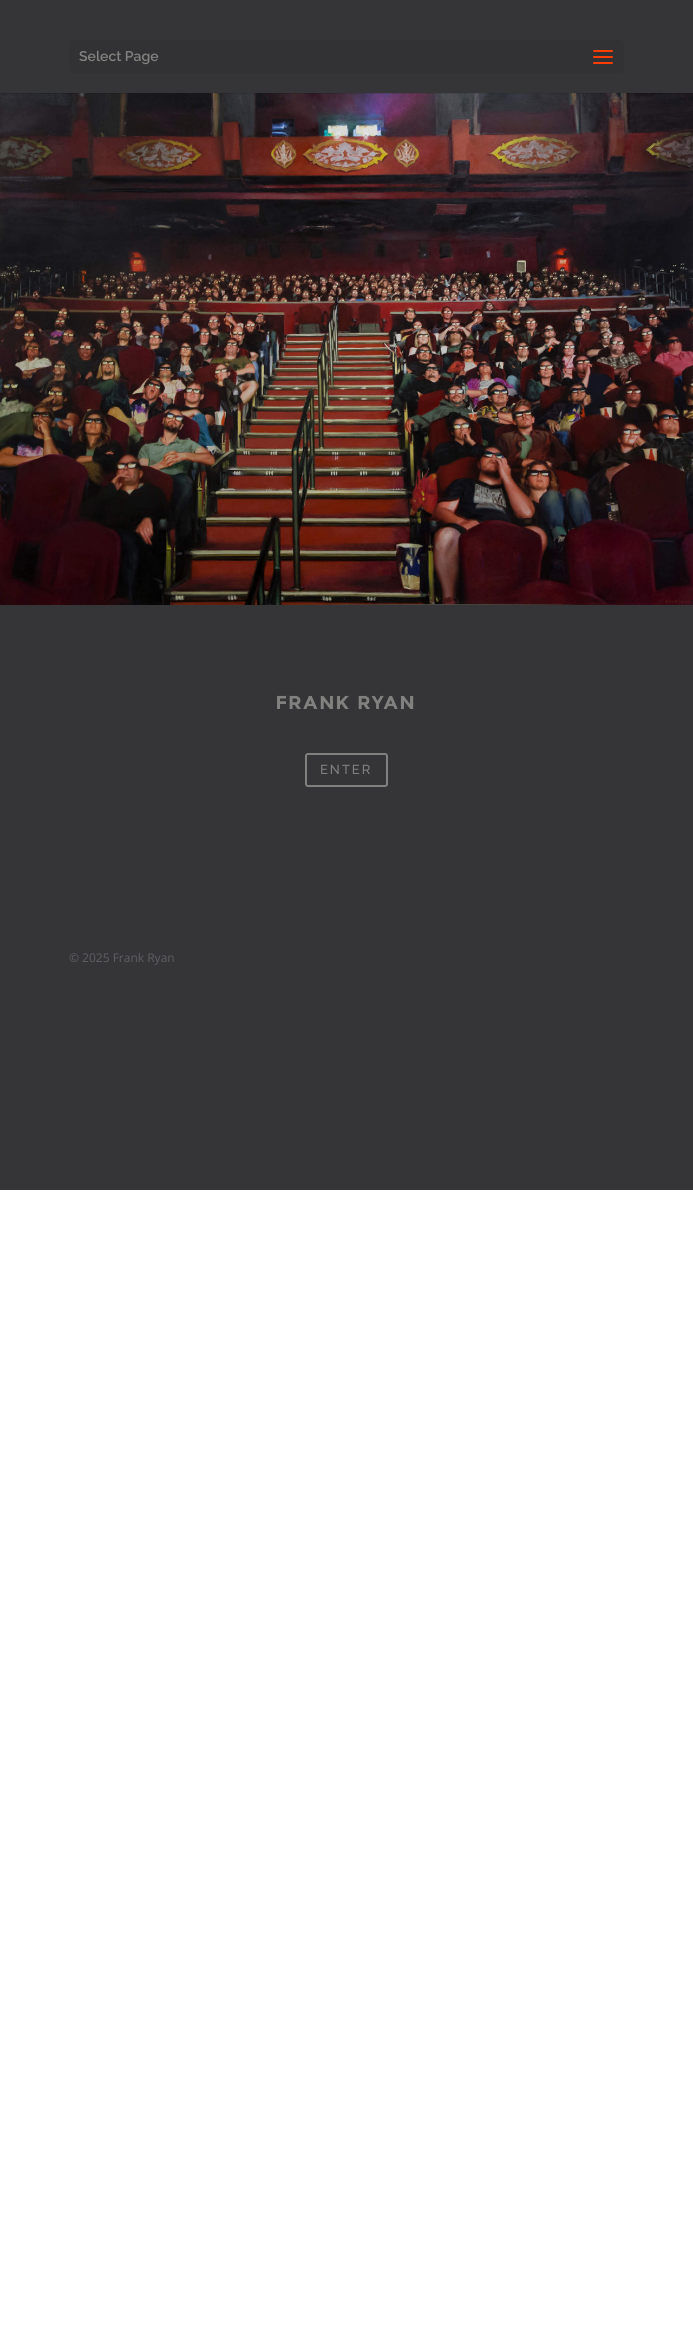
import math
import cairocffi as cairo

surface = cairo.ImageSurface(cairo.FORMAT_RGB24, 693, 2352)
ctx = cairo.Context(surface)
options = cairo.FontOptions()
options.set_hint_metrics(cairo.HINT_METRICS_OFF)
options.set_hint_style(cairo.HINT_STYLE_NONE)
ctx.set_font_options(options)
ctx.set_miter_limit(4)


def rgb(r, g, b):
    ctx.set_source_rgb(r / 255, g / 255, b / 255)


def face(family, size, italic, bold):
    ctx.select_font_face(family, cairo.FONT_SLANT_ITALIC if italic else cairo.FONT_SLANT_NORMAL, cairo.FONT_WEIGHT_BOLD if bold else cairo.FONT_WEIGHT_NORMAL)
    ctx.set_font_size(size)


def label(x, y, s):
    ctx.move_to(x, y)
    ctx.show_text(s)


def tracked(x, y, s, letter, word):
    ctx.move_to(x, y)
    for ch in s:
        ctx.show_text(ch)
        ctx.rel_move_to(letter + word * (ch == ' '), 0)


def rect(x, y, w, h):
    ctx.rectangle(x, y, w, h)
    ctx.fill()


def rrect(x, y, w, h, r):
    ctx.new_sub_path()
    for i, (u, v) in enumerate([(x + w - r, y + h - r), (x + r, y + h - r), (x + r, y + r), (x + w - r, y + r)]):
        ctx.arc(u, v, r, i * math.pi / 2, (i + 1) * math.pi / 2)
    ctx.close_path()


def image(path, x, y, w, h):
    ctx.save()
    ctx.set_source_surface(cairo.ImageSurface.create_from_png(path), x, y)
    ctx.rectangle(x, y, w, h)
    ctx.fill()
    ctx.restore()


rgb(255, 255, 255)
ctx.paint()
image('image1.png', 0, 93, 693, 512)
ctx.set_source_rgba(0, 0, 0, 0.1)
rect(0, 93, 693, 1)
rgb(53, 53, 55)
rect(0, 0, 693, 93)
rgb(50, 50, 52)
rrect(69, 40, 555, 33, 5)
ctx.fill()
face('Raleway SemiBold', 14, 0, 0)
rgb(129, 129, 127)
label(79, 61, 'Select Page')
image('image0.png', 593, 50, 20, 14)
rgb(53, 53, 55)
rect(0, 605, 693, 286)
image('image2.png', 277, 695, 137, 14)
rrect(306, 754, 81, 32, 2)
rgb(129, 129, 127)
ctx.stroke()
face('Raleway Medium', 13, 0, 0)
tracked(320, 774, 'ENTER', 2, 0)
rgb(53, 53, 55)
rect(0, 891, 693, 299)
face('Open Sans', 12, 0, 0)
rgb(94, 94, 99)
label(69, 962, '© 2025 Frank Ryan')
surface.write_to_png('render.png')
